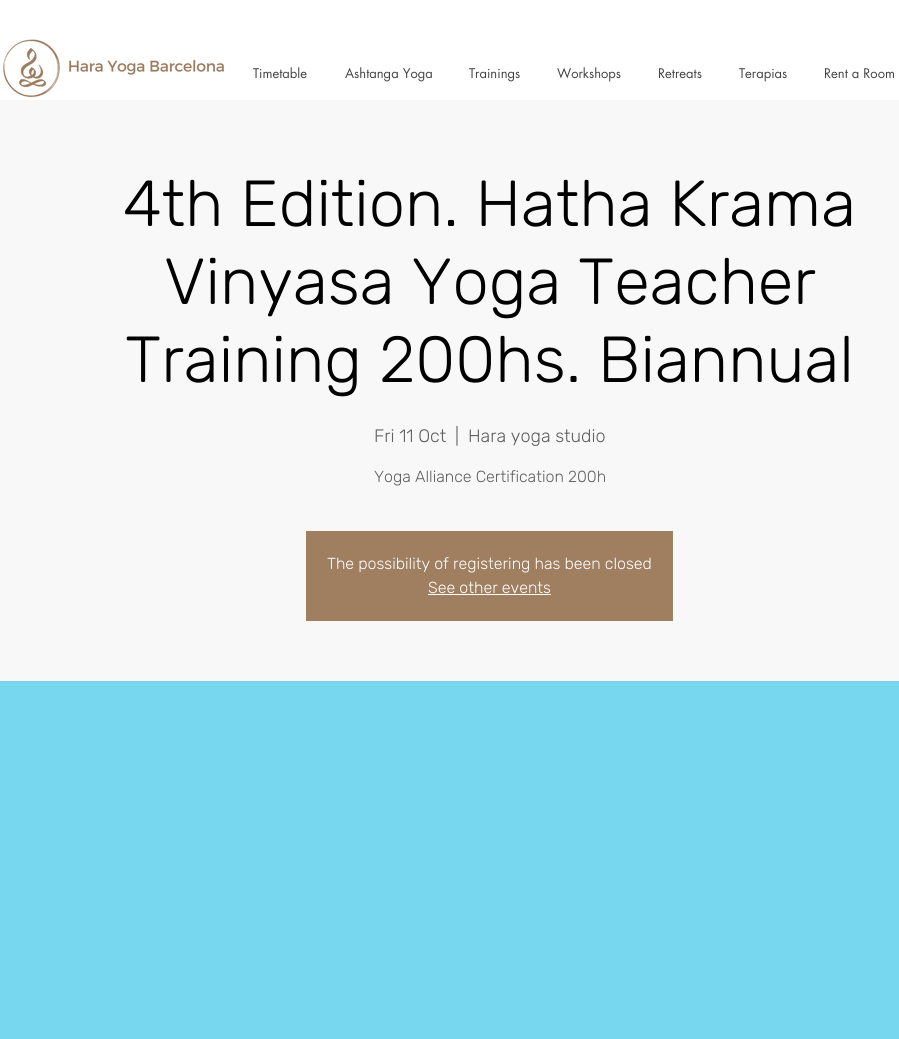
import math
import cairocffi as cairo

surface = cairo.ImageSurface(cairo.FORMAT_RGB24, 899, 1039)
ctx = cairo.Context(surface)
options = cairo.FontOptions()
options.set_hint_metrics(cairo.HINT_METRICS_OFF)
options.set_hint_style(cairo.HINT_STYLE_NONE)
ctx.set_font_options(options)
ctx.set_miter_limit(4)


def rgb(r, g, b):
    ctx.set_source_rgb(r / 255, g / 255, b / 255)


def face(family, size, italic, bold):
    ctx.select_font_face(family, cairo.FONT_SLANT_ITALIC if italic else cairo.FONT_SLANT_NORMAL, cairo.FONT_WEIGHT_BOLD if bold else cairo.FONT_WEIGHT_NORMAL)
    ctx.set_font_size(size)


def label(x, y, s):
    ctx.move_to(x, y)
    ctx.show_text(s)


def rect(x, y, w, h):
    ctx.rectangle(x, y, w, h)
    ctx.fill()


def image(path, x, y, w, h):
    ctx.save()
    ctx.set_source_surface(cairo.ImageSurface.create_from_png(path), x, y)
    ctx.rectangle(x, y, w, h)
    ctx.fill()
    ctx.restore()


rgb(255, 255, 255)
ctx.paint()
image('image0.png', 3, 39, 222, 58)
face('futura', 13, 0, 0)
rgb(68, 68, 68)
label(253, 78, 'Timetable')
label(345, 78, 'Ashtanga Yoga')
label(469, 78, 'Trainings')
label(557, 78, 'Workshops')
label(658, 78, 'Retreats')
label(739, 78, 'Terapias')
label(824, 78, 'Rent a Room')
rgb(248, 248, 248)
rect(0, 100, 899, 581)
face('Rubik Light', 65, 0, 0)
rgb(0, 0, 0)
label(123, 226, '4th Edition. Hatha Krama')
label(164, 304, 'Vinyasa Yoga Teacher')
label(125, 382, 'Training 200hs. Biannual')
face('Rubik Light', 18, 0, 0)
rgb(96, 96, 96)
label(374, 442, 'Fri 11 Oct')
label(455, 442, '|')
label(468, 442, 'Hara yoga studio')
face('Rubik Light', 16, 0, 0)
label(374, 482, 'Yoga Alliance Certification 200h')
rgb(160, 126, 96)
rect(306, 531, 367, 90)
rgb(255, 255, 255)
label(327, 569, 'The possibility of registering has been closed')
label(428, 593, 'See other events')
rect(428, 594, 123, 1)
rgb(119, 215, 239)
rect(0, 681, 899, 358)
surface.write_to_png('render.png')
